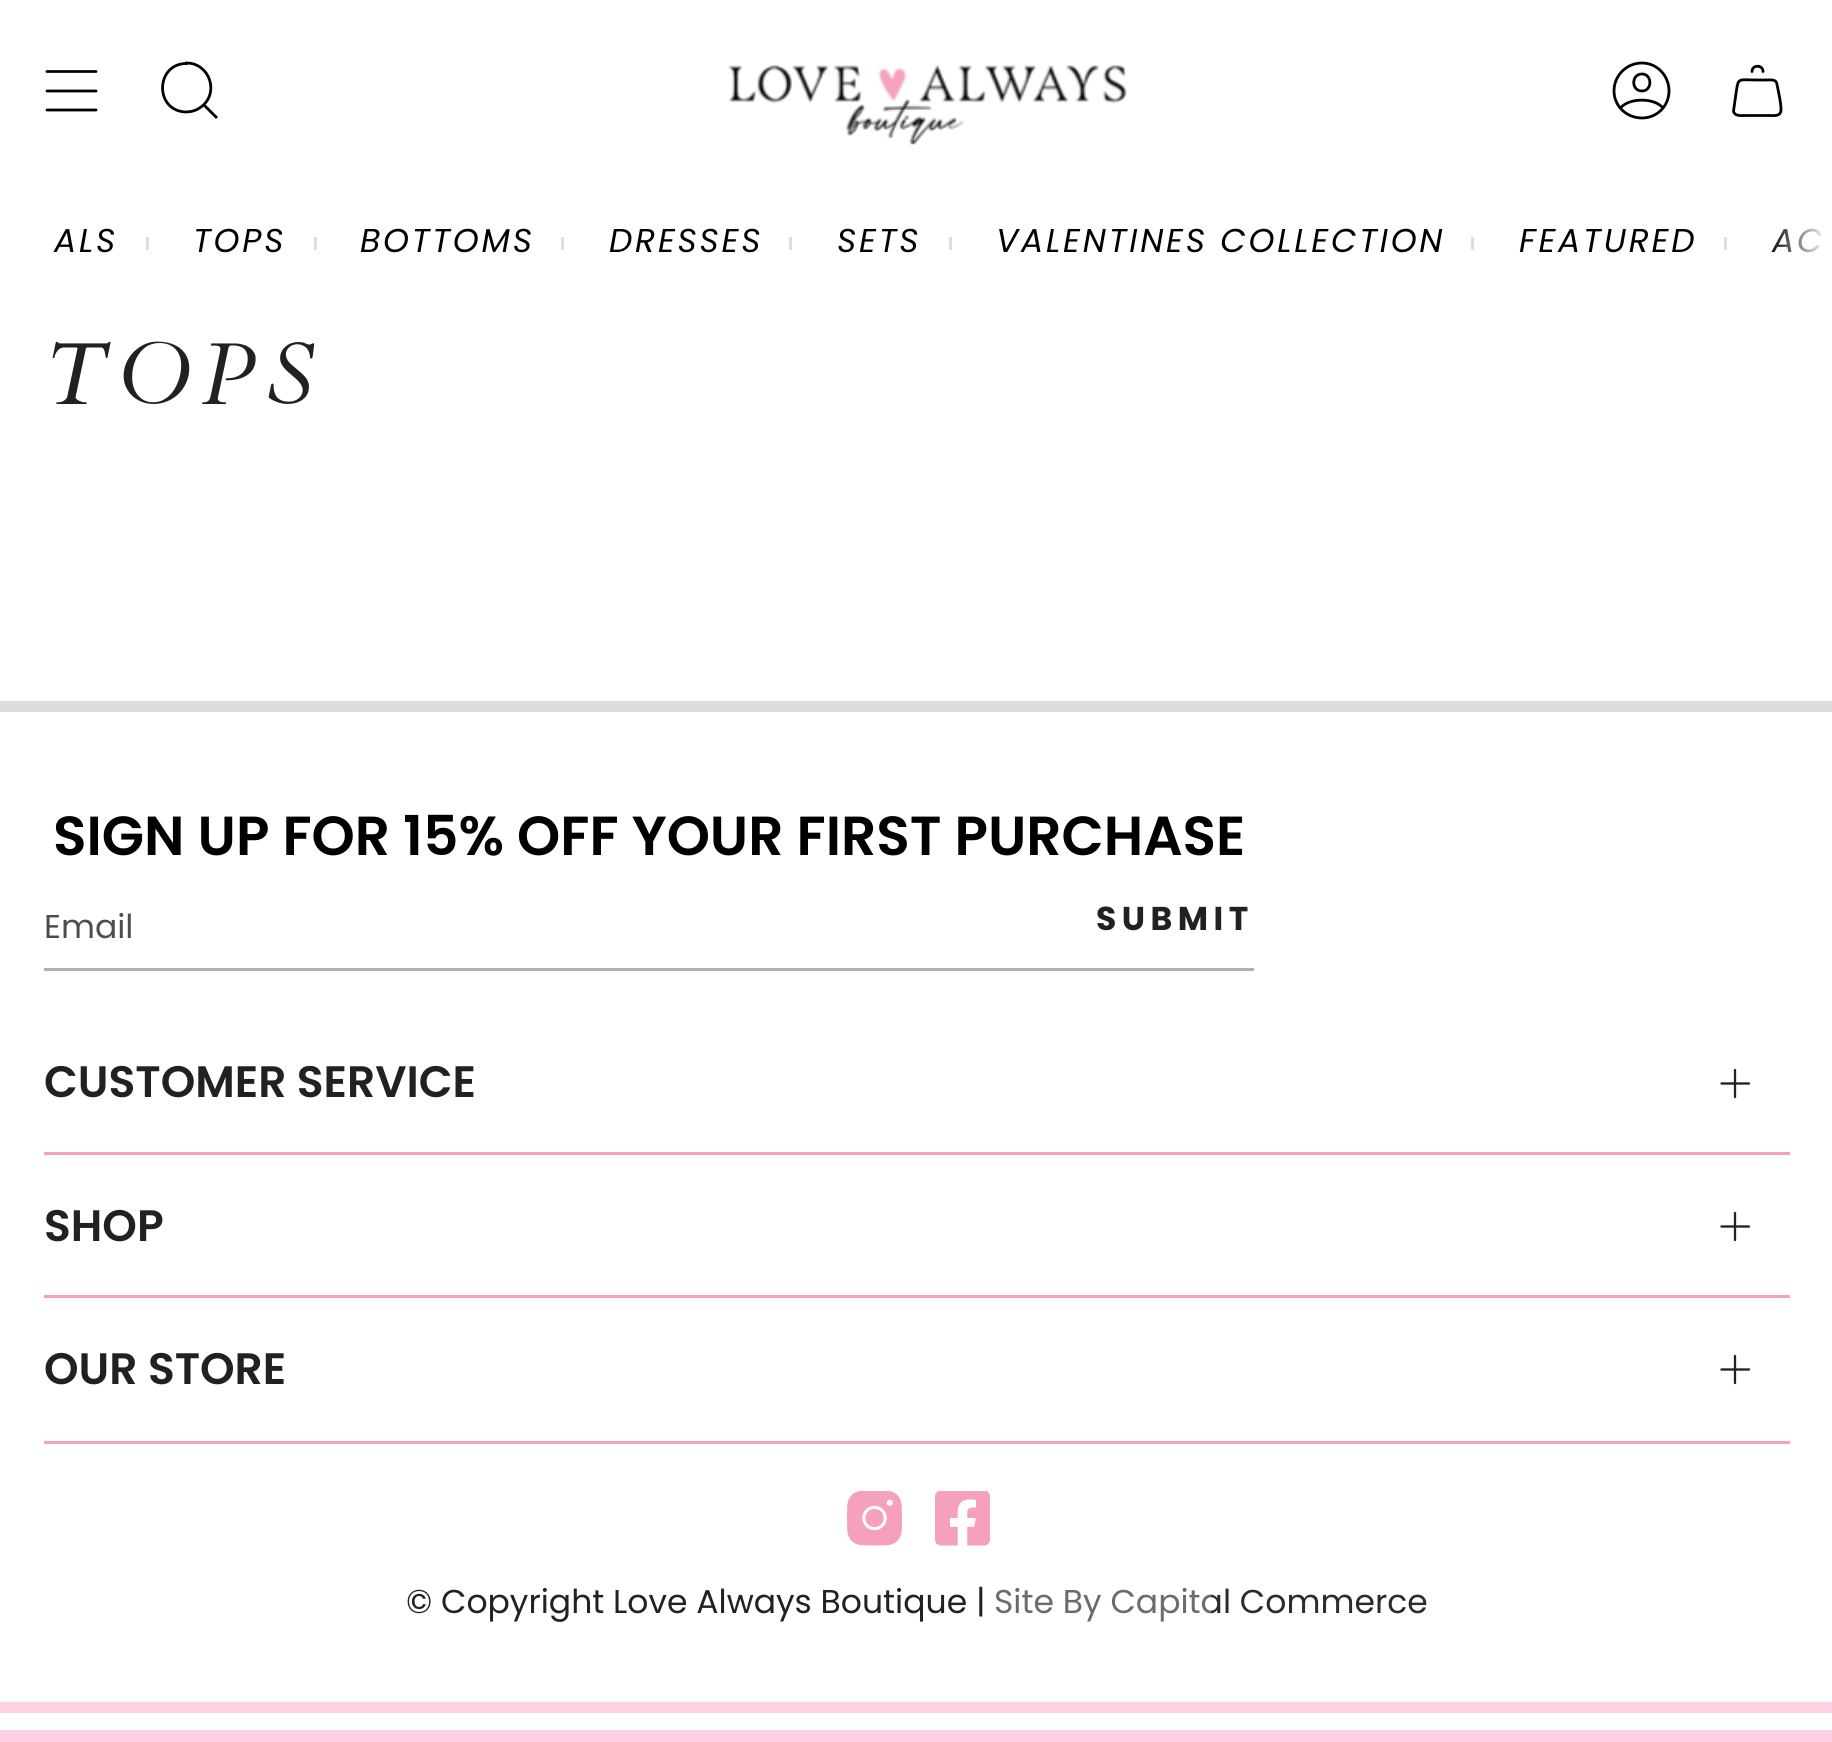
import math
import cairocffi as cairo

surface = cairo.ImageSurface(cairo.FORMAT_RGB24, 1832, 1742)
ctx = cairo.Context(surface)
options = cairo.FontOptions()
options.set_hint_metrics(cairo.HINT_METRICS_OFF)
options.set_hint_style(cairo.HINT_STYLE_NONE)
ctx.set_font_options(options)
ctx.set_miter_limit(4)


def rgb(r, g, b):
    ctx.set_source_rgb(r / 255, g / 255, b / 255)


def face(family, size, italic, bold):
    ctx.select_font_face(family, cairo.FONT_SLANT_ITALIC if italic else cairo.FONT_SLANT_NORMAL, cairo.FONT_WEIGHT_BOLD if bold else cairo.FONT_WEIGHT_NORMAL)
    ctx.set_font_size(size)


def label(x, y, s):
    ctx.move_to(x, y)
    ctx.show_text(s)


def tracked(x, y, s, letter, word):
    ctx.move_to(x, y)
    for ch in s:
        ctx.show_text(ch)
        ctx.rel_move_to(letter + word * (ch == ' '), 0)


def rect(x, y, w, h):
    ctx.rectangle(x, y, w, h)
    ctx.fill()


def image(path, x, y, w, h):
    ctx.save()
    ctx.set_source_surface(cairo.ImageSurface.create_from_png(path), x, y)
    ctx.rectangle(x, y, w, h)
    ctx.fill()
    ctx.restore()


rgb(255, 255, 255)
ctx.paint()
ctx.new_path()
ctx.move_to(47, 71.5)
ctx.line_to(96, 71.5)
ctx.move_to(47, 91)
ctx.line_to(96, 91)
ctx.move_to(47, 110)
ctx.line_to(96, 110)
rgb(0, 0, 0)
ctx.set_line_width(2.8)
ctx.set_line_cap(cairo.LINE_CAP_ROUND)
ctx.set_line_join(cairo.LINE_JOIN_ROUND)
ctx.stroke()
ctx.new_path()
ctx.move_to(186.5, 63)
ctx.curve_to(209.5, 63, 220, 93, 201, 107)
ctx.curve_to(196.5, 110.5, 191, 112, 185.5, 112)
ctx.curve_to(154, 110.5, 155.5, 63.5, 186.5, 63.5)
ctx.close_path()
ctx.move_to(204, 105)
ctx.line_to(217, 118)
ctx.set_line_cap(cairo.LINE_CAP_BUTT)
ctx.set_line_join(cairo.LINE_JOIN_MITER)
ctx.stroke()
image('image0.png', 728, 65, 399, 80)
ctx.new_path()
ctx.move_to(1642, 63)
ctx.curve_to(1626.5, 63, 1614, 75.5, 1614, 91)
ctx.curve_to(1614, 106, 1626.5, 118, 1642, 118)
ctx.curve_to(1657, 118, 1669, 106, 1669, 91)
ctx.curve_to(1669, 75.5, 1657, 63, 1642, 63)
ctx.close_path()
ctx.move_to(1620.5, 108)
ctx.curve_to(1629, 97.5, 1654.5, 97.5, 1663, 108)
ctx.move_to(1642, 91)
ctx.curve_to(1652.5, 91, 1652.5, 74, 1642, 74)
ctx.curve_to(1631, 74, 1631, 91, 1642, 91)
ctx.close_path()
ctx.set_line_cap(cairo.LINE_CAP_ROUND)
ctx.set_line_join(cairo.LINE_JOIN_ROUND)
ctx.stroke()
ctx.new_path()
ctx.move_to(1777, 84.5)
ctx.curve_to(1778, 89.5, 1782.5, 109, 1780.5, 112.5)
ctx.curve_to(1778.5, 116.5, 1773, 115.5, 1769.5, 115.5)
ctx.line_to(1745, 115.5)
ctx.curve_to(1741, 115.5, 1734.5, 116.5, 1733.5, 111)
ctx.line_to(1735.5, 97)
ctx.curve_to(1738.5, 76.5, 1736.5, 80, 1757, 80)
ctx.line_to(1767, 80)
ctx.curve_to(1771, 80, 1776.5, 79, 1777, 84.5)
ctx.close_path()
ctx.move_to(1763, 71.5)
ctx.curve_to(1763, 64.5, 1752, 64.5, 1752, 71.5)
ctx.stroke()
face('Poppins', 33, 1, 0)
tracked(54, 252, 'ALS', 2.75, 0)
rgb(221, 221, 221)
rect(146, 237, 3, 13)
rgb(0, 0, 0)
tracked(193, 252, 'TOPS', 2.75, 0)
rgb(221, 221, 221)
rect(314, 237, 3, 13)
rgb(0, 0, 0)
tracked(360, 252, 'BOTTOMS', 2.75, 0)
rgb(221, 221, 221)
rect(561, 237, 3, 13)
rgb(0, 0, 0)
tracked(609, 252, 'DRESSES', 2.75, 0)
rgb(221, 221, 221)
rect(789, 237, 3, 13)
rgb(0, 0, 0)
tracked(837, 252, 'SETS', 2.75, 0)
rgb(221, 221, 221)
rect(949, 237, 3, 13)
rgb(0, 0, 0)
tracked(996, 252, 'VALENTINES COLLECTION', 2.75, 0)
rgb(221, 221, 221)
rect(1471, 237, 3, 13)
rgb(0, 0, 0)
tracked(1519, 252, 'FEATURED', 2.75, 0)
rgb(221, 221, 221)
rect(1724, 237, 3, 13)
rgb(0, 0, 0)
tracked(1772, 252, 'AC', 2.75, 0)
gradient = cairo.LinearGradient(1768, 242, 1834, 242)
gradient.add_color_stop_rgba(0, 1, 1, 1, 0)
gradient.add_color_stop_rgba(0.9, 1, 1, 1, 1)
ctx.set_source(gradient)
rect(1771, 228, 51, 25)
face('Cardo', 88, 1, 0)
rgb(33, 33, 33)
tracked(44, 404, 'TOPS', 13, 0)
rgb(221, 221, 221)
rect(0, 701, 1832, 11)
rgb(255, 208, 225)
rect(0, 1730, 1832, 12)
rect(0, 1702, 1832, 11)
face('Poppins SemiBold', 55, 0, 0)
rgb(0, 0, 0)
label(53, 855, 'SIGN UP FOR 15% OFF YOUR FIRST PURCHASE')
rgb(177, 177, 177)
rect(44, 968, 1210, 3)
face('Poppins', 33, 0, 0)
rgb(77, 77, 77)
label(44, 938, 'Email')
face('Poppins', 33, 0, 1)
rgb(33, 33, 33)
tracked(1096, 930, 'SUBMIT', 5.5, 0)
rgb(245, 160, 188)
rect(44, 1152, 1746, 3)
face('Poppins SemiBold', 44, 0, 0)
rgb(33, 33, 33)
label(44, 1097, 'CUSTOMER SERVICE')
ctx.new_path()
ctx.move_to(1721.5, 1083.5)
ctx.line_to(1735, 1083.5)
ctx.move_to(1749, 1083.5)
ctx.line_to(1735, 1083.5)
ctx.move_to(1735, 1083.5)
ctx.line_to(1735, 1070)
ctx.move_to(1735, 1083.5)
ctx.line_to(1735, 1097)
ctx.set_line_width(2.3)
ctx.stroke()
rgb(245, 160, 188)
rect(44, 1295, 1746, 3)
rgb(33, 33, 33)
label(44, 1241, 'SHOP')
ctx.new_path()
ctx.move_to(1721.5, 1226.5)
ctx.line_to(1735, 1226.5)
ctx.move_to(1749, 1226.5)
ctx.line_to(1735, 1226.5)
ctx.move_to(1735, 1226.5)
ctx.line_to(1735, 1213)
ctx.move_to(1735, 1226.5)
ctx.line_to(1735, 1240)
ctx.stroke()
rgb(245, 160, 188)
rect(44, 1441, 1746, 3)
rgb(33, 33, 33)
label(44, 1384, 'OUR STORE')
ctx.new_path()
ctx.move_to(1721.5, 1369.5)
ctx.line_to(1735, 1369.5)
ctx.move_to(1749, 1369.5)
ctx.line_to(1735, 1369.5)
ctx.move_to(1735, 1369.5)
ctx.line_to(1735, 1356)
ctx.move_to(1735, 1369.5)
ctx.line_to(1735, 1383)
ctx.stroke()
image('image1.png', 847, 1491, 55, 55)
image('image2.png', 935, 1491, 55, 55)
face('Poppins', 33, 0, 0)
label(406, 1613, '© Copyright Love Always Boutique |')
gradient = cairo.LinearGradient(994, 1605, 1428, 1605)
gradient.add_color_stop_rgba(0, 0.412, 0.42, 0.427, 1)
gradient.add_color_stop_rgba(0.5, 0.412, 0.42, 0.427, 1)
gradient.add_color_stop_rgba(0.5, 0.157, 0.173, 0.18, 1)
gradient.add_color_stop_rgba(1, 0.157, 0.173, 0.18, 1)
ctx.set_source(gradient)
label(994, 1613, 'Site By Capital Commerce')
surface.write_to_png('render.png')
